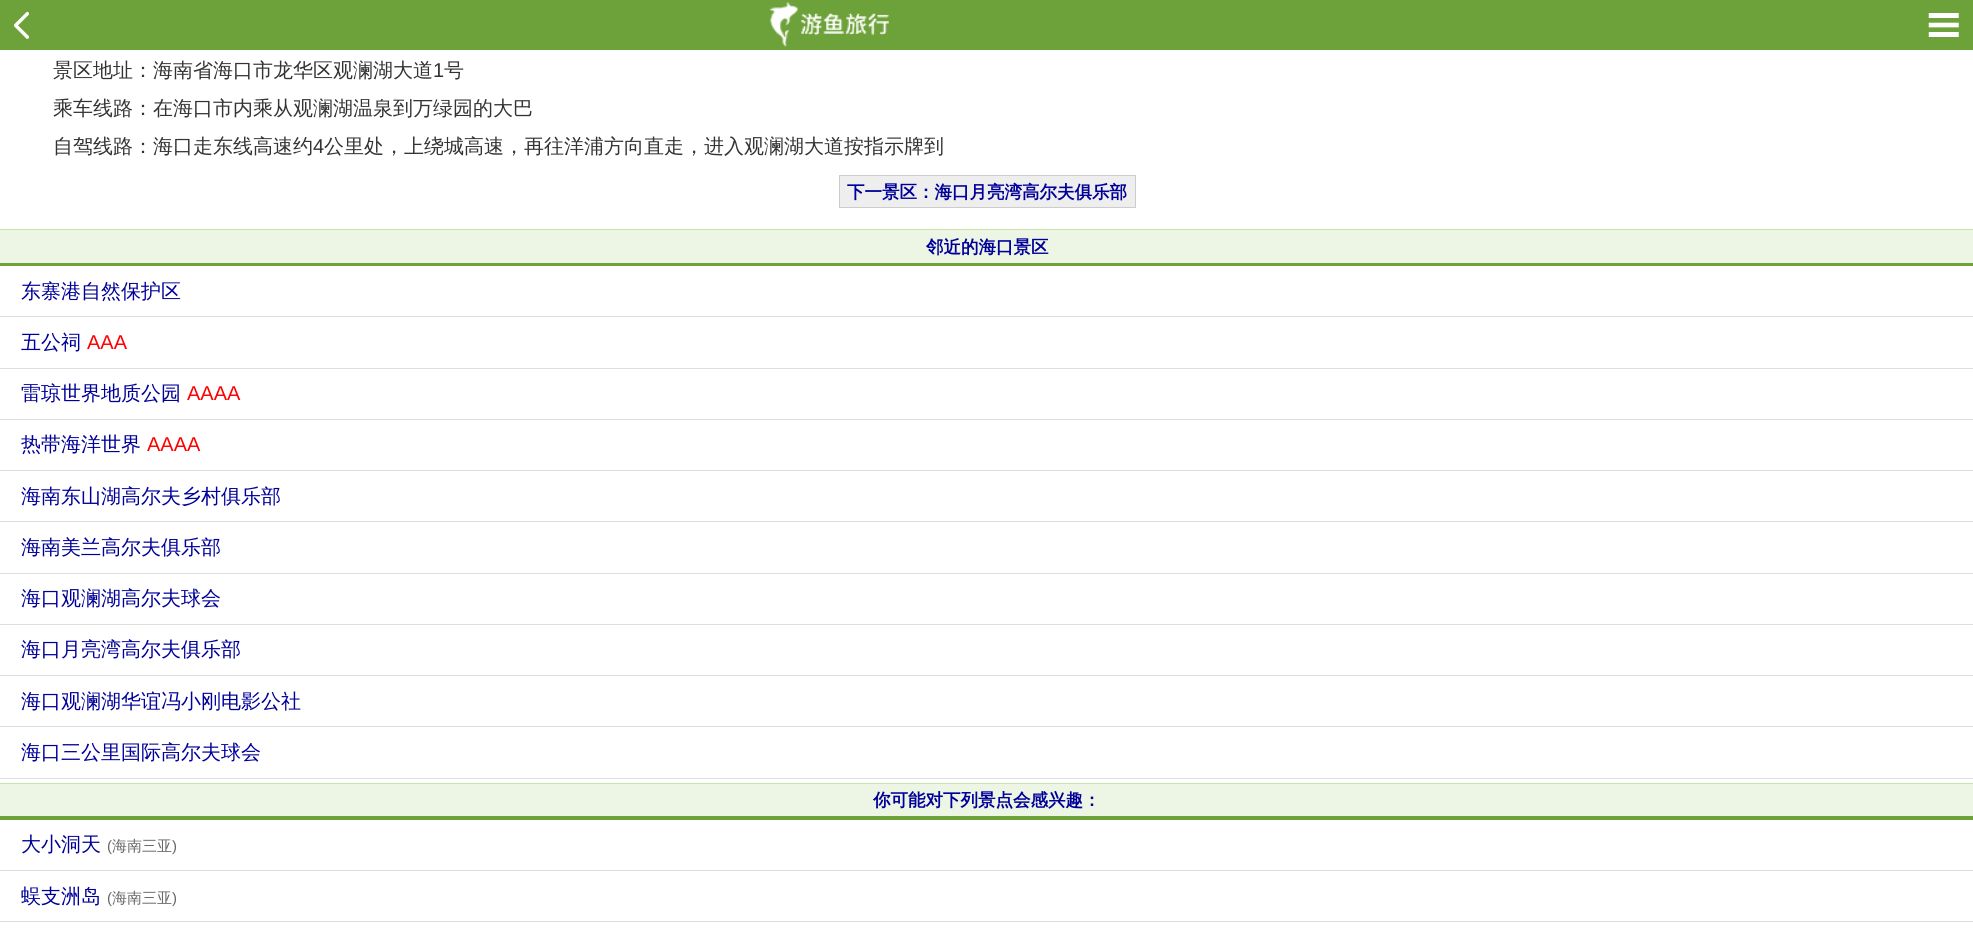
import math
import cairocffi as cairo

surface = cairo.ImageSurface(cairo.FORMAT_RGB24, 1973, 939)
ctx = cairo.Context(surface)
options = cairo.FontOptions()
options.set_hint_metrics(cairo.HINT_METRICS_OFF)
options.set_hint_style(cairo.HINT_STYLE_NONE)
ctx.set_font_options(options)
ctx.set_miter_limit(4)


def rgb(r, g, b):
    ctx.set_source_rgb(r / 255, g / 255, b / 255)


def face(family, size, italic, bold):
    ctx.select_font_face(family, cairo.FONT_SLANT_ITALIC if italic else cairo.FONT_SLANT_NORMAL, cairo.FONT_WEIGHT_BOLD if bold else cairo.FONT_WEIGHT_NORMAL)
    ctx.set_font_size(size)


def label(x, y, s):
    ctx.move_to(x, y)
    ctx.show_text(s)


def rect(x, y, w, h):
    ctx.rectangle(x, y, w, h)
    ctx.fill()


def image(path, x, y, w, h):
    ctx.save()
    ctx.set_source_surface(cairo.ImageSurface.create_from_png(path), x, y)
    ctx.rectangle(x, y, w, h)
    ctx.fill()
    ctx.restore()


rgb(255, 255, 255)
ctx.paint()
rgb(109, 161, 57)
rect(0, 0, 1973, 50)
image('image0.png', 14, 11, 15, 28)
image('image1.png', 769, 2, 120, 45)
image('image2.png', 1928, 13, 31, 24)
face('WenQuanYi Zen Hei Medium', 20, 0, 0)
rgb(51, 51, 51)
label(53, 77, '景区地址：海南省海口市龙华区观澜湖大道')
face('Liberation Sans', 20, 0, 0)
label(433, 77, '1')
face('WenQuanYi Zen Hei Medium', 20, 0, 0)
label(444, 77, '号')
label(53, 115, '乘车线路：在海口市内乘从观澜湖温泉到万绿园的大巴')
label(53, 153, '自驾线路：海口走东线高速约')
face('Liberation Sans', 20, 0, 0)
label(313, 153, '4')
face('WenQuanYi Zen Hei Medium', 20, 0, 0)
label(324, 153, '公里处，上绕城高速，再往洋浦方向直走，进入观澜湖大道按指示牌到')
rgb(238, 238, 238)
ctx.rectangle(839.5, 175.5, 296, 32)
ctx.fill_preserve()
rgb(204, 204, 204)
ctx.set_line_width(1)
ctx.stroke()
face('WenQuanYi Zen Hei', 17.5, 0, 1)
rgb(0, 0, 153)
label(847, 198, '下一景区：海口月亮湾高尔夫俱乐部')
rgb(237, 245, 229)
rect(0, 230, 1973, 33)
rgb(199, 227, 171)
rect(0, 229, 1973, 1)
rgb(109, 161, 57)
rect(0, 263, 1973, 3)
rgb(0, 0, 153)
label(926, 253, '邻近的海口景区')
rgb(222, 222, 222)
rect(0, 316, 1973, 1)
face('WenQuanYi Zen Hei Medium', 20, 0, 0)
rgb(0, 0, 153)
label(21, 298, '东寨港自然保护区')
rgb(222, 222, 222)
rect(0, 368, 1973, 1)
rgb(0, 0, 153)
label(21, 349, '五公祠')
face('Liberation Sans', 20, 0, 0)
rgb(255, 0, 0)
label(87, 349, 'AAA')
rgb(222, 222, 222)
rect(0, 419, 1973, 1)
face('WenQuanYi Zen Hei Medium', 20, 0, 0)
rgb(0, 0, 153)
label(21, 400, '雷琼世界地质公园')
face('Liberation Sans', 20, 0, 0)
rgb(255, 0, 0)
label(187, 400, 'AAAA')
rgb(222, 222, 222)
rect(0, 470, 1973, 1)
face('WenQuanYi Zen Hei Medium', 20, 0, 0)
rgb(0, 0, 153)
label(21, 451, '热带海洋世界')
face('Liberation Sans', 20, 0, 0)
rgb(255, 0, 0)
label(147, 451, 'AAAA')
rgb(222, 222, 222)
rect(0, 521, 1973, 1)
face('WenQuanYi Zen Hei Medium', 20, 0, 0)
rgb(0, 0, 153)
label(21, 503, '海南东山湖高尔夫乡村俱乐部')
rgb(222, 222, 222)
rect(0, 573, 1973, 1)
rgb(0, 0, 153)
label(21, 554, '海南美兰高尔夫俱乐部')
rgb(222, 222, 222)
rect(0, 624, 1973, 1)
rgb(0, 0, 153)
label(21, 605, '海口观澜湖高尔夫球会')
rgb(222, 222, 222)
rect(0, 675, 1973, 1)
rgb(0, 0, 153)
label(21, 656, '海口月亮湾高尔夫俱乐部')
rgb(222, 222, 222)
rect(0, 726, 1973, 1)
rgb(0, 0, 153)
label(21, 708, '海口观澜湖华谊冯小刚电影公社')
rgb(222, 222, 222)
rect(0, 778, 1973, 1)
rgb(0, 0, 153)
label(21, 759, '海口三公里国际高尔夫球会')
rgb(237, 245, 229)
rect(0, 784, 1973, 32)
rgb(199, 227, 171)
rect(0, 783, 1973, 1)
rgb(109, 161, 57)
rect(0, 816, 1973, 4)
face('WenQuanYi Zen Hei', 17.5, 0, 1)
rgb(0, 0, 153)
label(873, 806, '你可能对下列景点会感兴趣：')
rgb(222, 222, 222)
rect(0, 870, 1973, 1)
face('WenQuanYi Zen Hei Medium', 20, 0, 0)
rgb(0, 0, 153)
label(21, 851, '大小洞天')
face('Liberation Sans', 15, 0, 0)
rgb(102, 102, 102)
label(107, 851, '(')
face('WenQuanYi Zen Hei Medium', 15, 0, 0)
label(112, 851, '海南三亚')
face('Liberation Sans', 15, 0, 0)
label(172, 851, ')')
rgb(222, 222, 222)
rect(0, 921, 1973, 1)
face('WenQuanYi Zen Hei Medium', 20, 0, 0)
rgb(0, 0, 153)
label(21, 903, '蜈支洲岛')
face('Liberation Sans', 15, 0, 0)
rgb(102, 102, 102)
label(107, 903, '(')
face('WenQuanYi Zen Hei Medium', 15, 0, 0)
label(112, 903, '海南三亚')
face('Liberation Sans', 15, 0, 0)
label(172, 903, ')')
surface.write_to_png('render.png')
